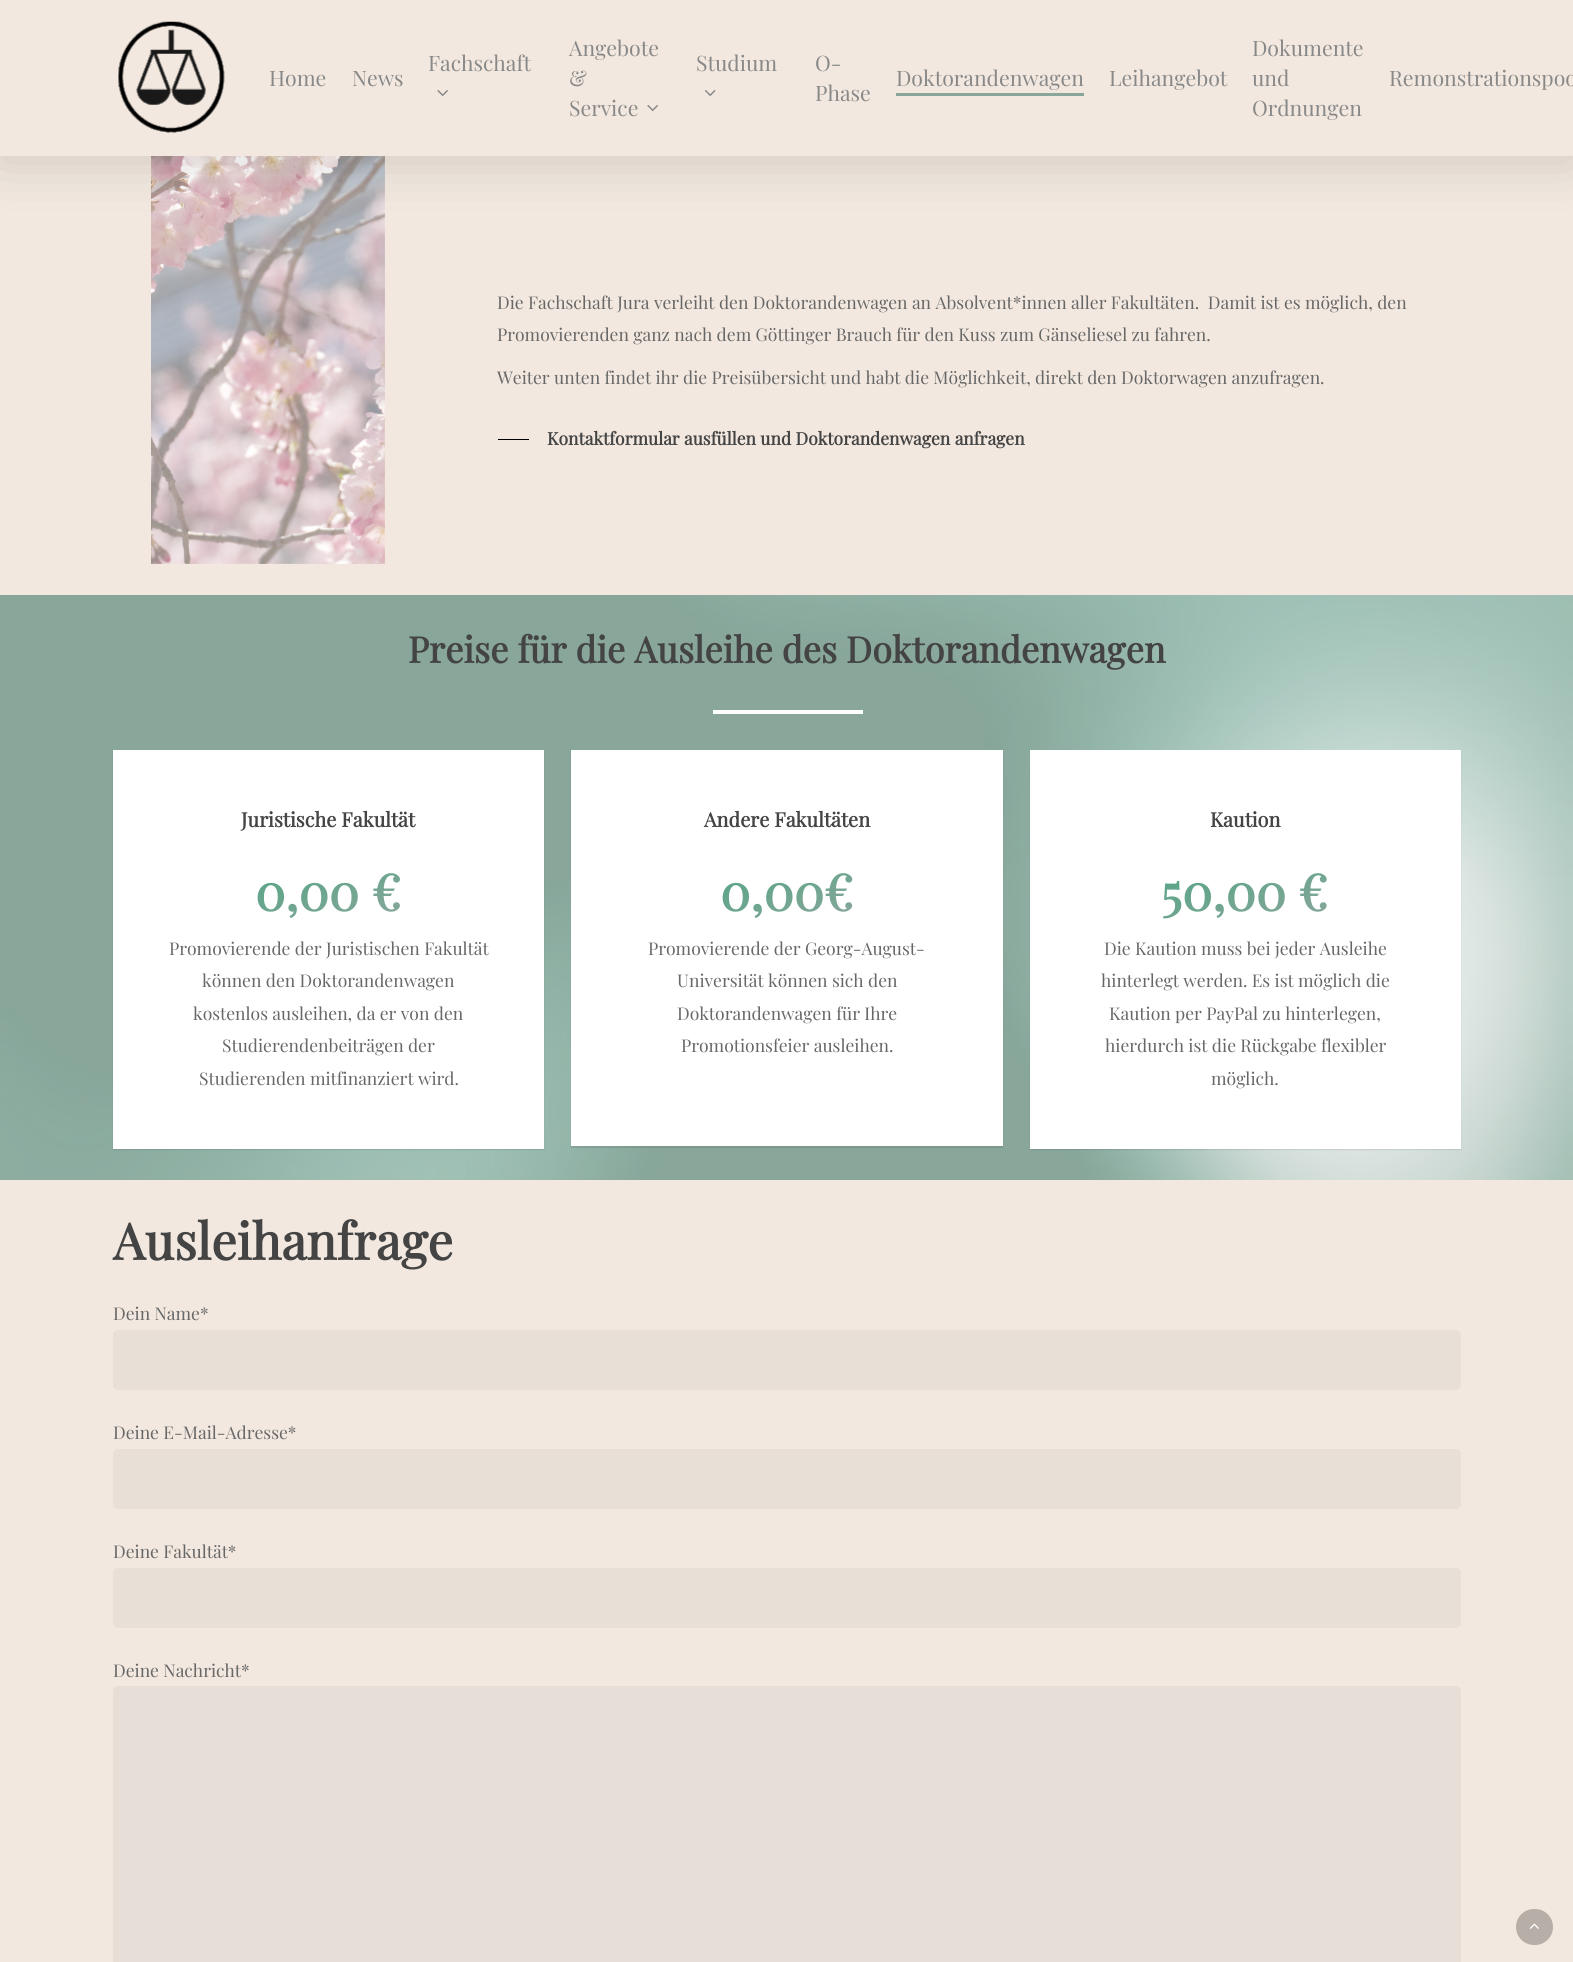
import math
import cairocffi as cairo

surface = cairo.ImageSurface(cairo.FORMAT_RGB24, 1573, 1962)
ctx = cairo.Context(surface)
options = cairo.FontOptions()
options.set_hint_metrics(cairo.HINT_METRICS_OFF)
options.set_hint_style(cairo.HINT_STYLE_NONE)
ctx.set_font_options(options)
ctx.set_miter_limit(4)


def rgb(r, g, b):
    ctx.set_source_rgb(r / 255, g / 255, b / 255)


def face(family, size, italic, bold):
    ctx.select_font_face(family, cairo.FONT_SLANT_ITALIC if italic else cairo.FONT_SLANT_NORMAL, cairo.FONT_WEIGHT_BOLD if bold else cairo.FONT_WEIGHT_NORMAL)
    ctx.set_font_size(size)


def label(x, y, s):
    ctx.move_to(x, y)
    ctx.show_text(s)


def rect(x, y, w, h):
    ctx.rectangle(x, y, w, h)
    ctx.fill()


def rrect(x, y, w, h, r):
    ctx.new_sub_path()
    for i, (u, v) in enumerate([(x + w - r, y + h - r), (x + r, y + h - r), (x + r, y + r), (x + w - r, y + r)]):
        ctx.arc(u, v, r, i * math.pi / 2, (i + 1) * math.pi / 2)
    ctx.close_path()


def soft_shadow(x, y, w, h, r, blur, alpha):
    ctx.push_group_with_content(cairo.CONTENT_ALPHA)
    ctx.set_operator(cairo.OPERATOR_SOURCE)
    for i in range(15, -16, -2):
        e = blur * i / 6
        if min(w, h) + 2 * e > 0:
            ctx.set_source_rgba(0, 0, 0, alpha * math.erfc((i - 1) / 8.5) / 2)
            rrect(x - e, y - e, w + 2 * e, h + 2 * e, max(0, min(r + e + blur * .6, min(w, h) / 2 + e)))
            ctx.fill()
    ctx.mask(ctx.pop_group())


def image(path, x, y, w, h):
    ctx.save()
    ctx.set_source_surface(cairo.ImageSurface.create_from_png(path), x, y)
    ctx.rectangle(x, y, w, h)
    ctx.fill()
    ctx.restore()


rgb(242, 232, 223)
ctx.paint()
image('image3.png', 151, 156, 234, 408)
rgb(0, 0, 0)
soft_shadow(0, 4, 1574, 156, 0, 28, 0.15)
rgb(242, 232, 223)
rect(0, 0, 1573, 156)
image('image0.png', 118, 21, 107, 112)
face('Playfair Display', 21.25, 0, 0)
rgb(136, 136, 136)
label(269, 86, 'Home')
label(352, 86, 'News')
label(428, 71, 'Fachschaft')
image('image1.png', 437, 90, 11, 7)
label(569, 56, 'Angebote')
label(569, 86, '&')
label(569, 116, 'Service')
image('image1.png', 647, 105, 11, 7)
label(696, 71, 'Studium')
image('image2.png', 704, 90, 12, 7)
label(815, 71, 'O-')
label(815, 101, 'Phase')
label(896, 86, 'Doktorandenwagen')
rgb(136, 166, 154)
rect(896, 93, 188, 3)
rgb(136, 136, 136)
label(1109, 86, 'Leihangebot')
label(1252, 56, 'Dokumente')
label(1252, 86, 'und')
label(1252, 116, 'Ordnungen')
label(1389, 86, 'Remonstrationspoo')
face('Playfair Display', 17.5, 0, 0)
rgb(103, 103, 103)
label(497, 309, 'Die Fachschaft Jura verleiht den Doktorandenwagen an Absolvent*innen aller Fakultäten.  Damit ist es möglich, den')
label(497, 341, 'Promovierenden ganz nach dem Göttinger Brauch für den Kuss zum Gänseliesel zu fahren.')
label(497, 384, 'Weiter unten findet ihr die Preisübersicht und habt die Möglichkeit, direkt den Doktorwagen anzufragen.')
rgb(0, 0, 0)
rect(498, 439, 31, 1)
face('Playfair Display', 17.5, 0, 1)
rgb(68, 68, 68)
label(547, 445, 'Kontaktformular ausfüllen und Doktorandenwagen anfragen')
rgb(136, 166, 154)
rect(0, 595, 1573, 585)
image('image4.png', 0, 595, 1573, 585)
face('Playfair Display', 36.1, 0, 1)
rgb(68, 68, 68)
label(408, 663, 'Preise für die Ausleihe des Doktorandenwagen')
rgb(255, 255, 255)
rect(713, 710, 150, 4)
rgb(0, 0, 0)
soft_shadow(113, 751, 431, 399, 0, 0.5, 0.1)
rgb(255, 255, 255)
rect(113, 750, 431, 399)
face('Playfair Display', 20, 0, 1)
rgb(68, 68, 68)
label(241, 827, 'Juristische Fakultät')
face('Playfair Display', 50.5, 0, 1)
gradient = cairo.LinearGradient(310, 841, 347, 939)
gradient.add_color_stop_rgba(0, 0.322, 0.647, 0.518, 1)
gradient.add_color_stop_rgba(1, 0.533, 0.651, 0.604, 1)
ctx.set_source(gradient)
label(255, 911, '0,00 €')
face('Playfair Display', 17.5, 0, 0)
rgb(103, 103, 103)
label(169, 955, 'Promovierende der Juristischen Fakultät')
label(202, 987, 'können den Doktorandenwagen')
label(193, 1020, 'kostenlos ausleihen, da er von den')
label(222, 1052, 'Studierendenbeiträgen der')
label(199, 1085, 'Studierenden mitfinanziert wird.')
rgb(0, 0, 0)
soft_shadow(571, 751, 432, 397, 0, 0.5, 0.1)
rgb(255, 255, 255)
rect(571, 750, 432, 396)
face('Playfair Display', 20, 0, 1)
rgb(68, 68, 68)
label(704, 827, 'Andere Fakultäten')
face('Playfair Display', 50.5, 0, 1)
gradient = cairo.LinearGradient(767, 843, 807, 938)
gradient.add_color_stop_rgba(0, 0.322, 0.647, 0.518, 1)
gradient.add_color_stop_rgba(1, 0.533, 0.651, 0.604, 1)
ctx.set_source(gradient)
label(720, 911, '0,00€')
face('Playfair Display', 17.5, 0, 0)
rgb(103, 103, 103)
label(648, 955, 'Promovierende der Georg-August-')
label(677, 987, 'Universität können sich den')
label(677, 1020, 'Doktorandenwagen für Ihre')
label(681, 1052, 'Promotionsfeier ausleihen.')
rgb(0, 0, 0)
soft_shadow(1030, 751, 431, 399, 0, 0.5, 0.1)
rgb(255, 255, 255)
rect(1030, 750, 431, 399)
face('Playfair Display', 20, 0, 1)
rgb(68, 68, 68)
label(1210, 827, 'Kaution')
face('Playfair Display', 50.5, 0, 1)
gradient = cairo.LinearGradient(1228, 840, 1262, 941)
gradient.add_color_stop_rgba(0, 0.322, 0.647, 0.518, 1)
gradient.add_color_stop_rgba(1, 0.533, 0.651, 0.604, 1)
ctx.set_source(gradient)
label(1161, 911, '50,00 €')
face('Playfair Display', 17.5, 0, 0)
rgb(103, 103, 103)
label(1104, 955, 'Die Kaution muss bei jeder Ausleihe')
label(1101, 987, 'hinterlegt werden. Es ist möglich die')
label(1109, 1020, 'Kaution per PayPal zu hinterlegen,')
label(1105, 1052, 'hierdurch ist die Rückgabe flexibler')
label(1211, 1085, 'möglich.')
face('Playfair Display', 50.5, 0, 1)
rgb(68, 68, 68)
label(113, 1260, 'Ausleihanfrage')
face('Playfair Display', 17.5, 0, 0)
rgb(103, 103, 103)
label(113, 1320, 'Dein Name*')
rgb(232, 223, 214)
rrect(113, 1330, 1348, 60, 5)
ctx.fill()
rgb(103, 103, 103)
label(113, 1439, 'Deine E-Mail-Adresse*')
rgb(232, 223, 214)
rrect(113, 1449, 1348, 60, 5)
ctx.fill()
rgb(103, 103, 103)
label(113, 1558, 'Deine Fakultät*')
rgb(232, 223, 214)
rrect(113, 1568, 1348, 60, 5)
ctx.fill()
rgb(103, 103, 103)
label(113, 1677, 'Deine Nachricht*')
rgb(231, 223, 215)
rrect(113, 1686, 1348, 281, 5)
ctx.fill()
rgb(182, 174, 167)
rrect(1516, 1909, 37, 36, 18)
ctx.fill()
image('image5.png', 1529, 1923, 10, 6)
surface.write_to_png('render.png')
